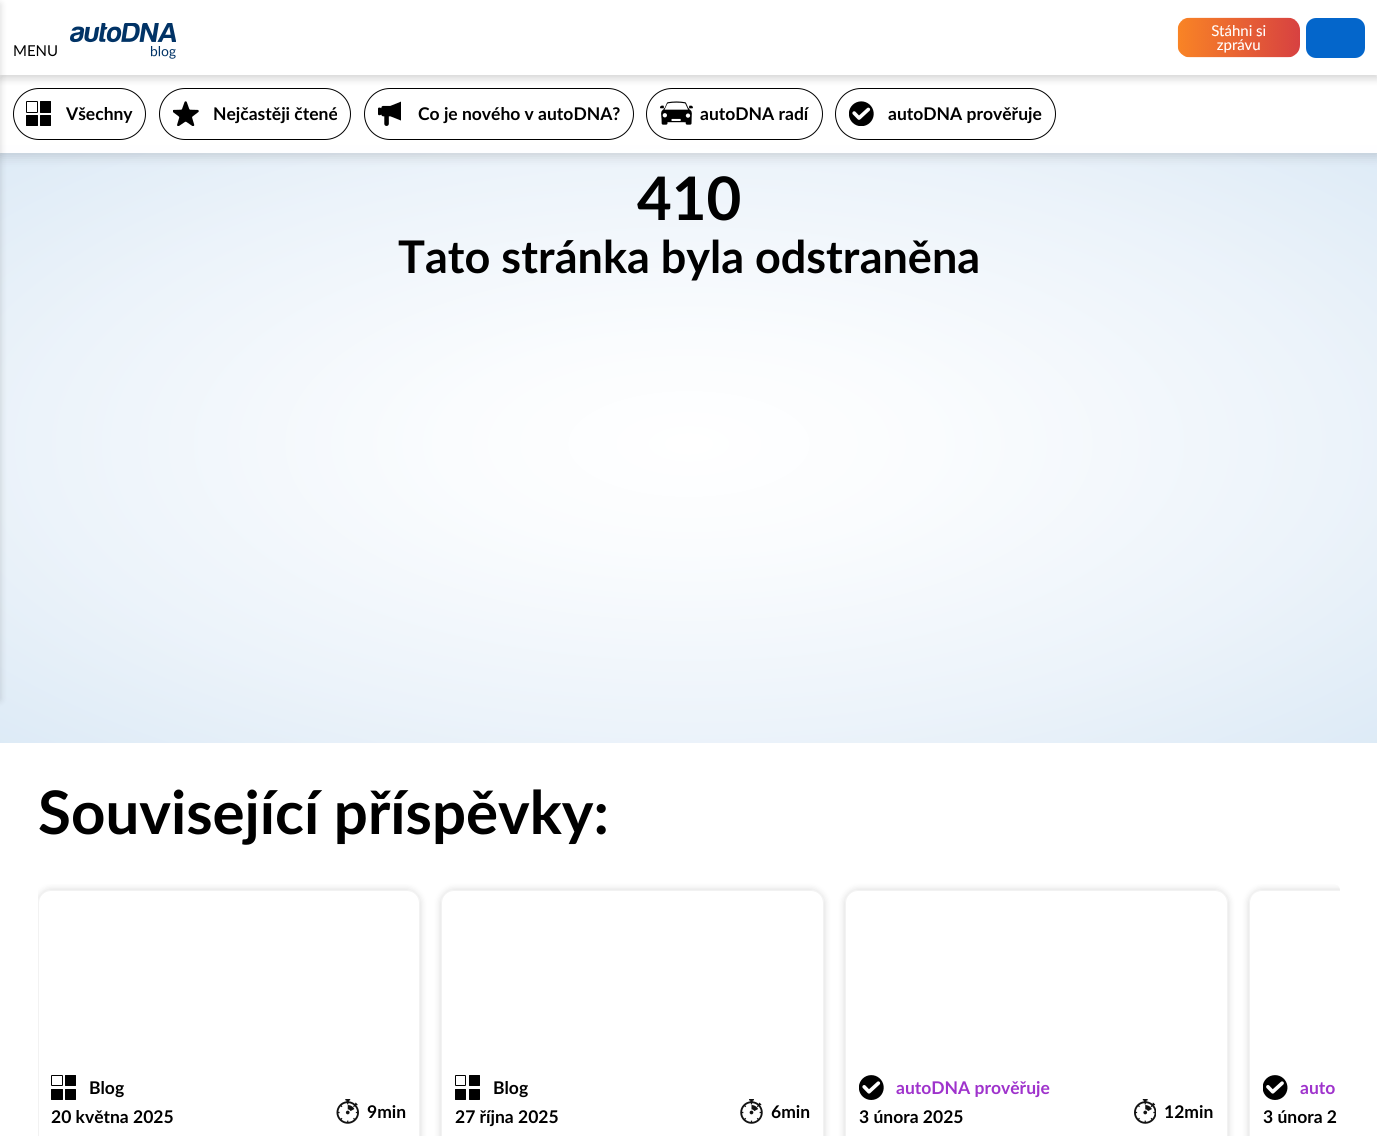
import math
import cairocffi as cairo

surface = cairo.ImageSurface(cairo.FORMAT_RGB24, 1377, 1136)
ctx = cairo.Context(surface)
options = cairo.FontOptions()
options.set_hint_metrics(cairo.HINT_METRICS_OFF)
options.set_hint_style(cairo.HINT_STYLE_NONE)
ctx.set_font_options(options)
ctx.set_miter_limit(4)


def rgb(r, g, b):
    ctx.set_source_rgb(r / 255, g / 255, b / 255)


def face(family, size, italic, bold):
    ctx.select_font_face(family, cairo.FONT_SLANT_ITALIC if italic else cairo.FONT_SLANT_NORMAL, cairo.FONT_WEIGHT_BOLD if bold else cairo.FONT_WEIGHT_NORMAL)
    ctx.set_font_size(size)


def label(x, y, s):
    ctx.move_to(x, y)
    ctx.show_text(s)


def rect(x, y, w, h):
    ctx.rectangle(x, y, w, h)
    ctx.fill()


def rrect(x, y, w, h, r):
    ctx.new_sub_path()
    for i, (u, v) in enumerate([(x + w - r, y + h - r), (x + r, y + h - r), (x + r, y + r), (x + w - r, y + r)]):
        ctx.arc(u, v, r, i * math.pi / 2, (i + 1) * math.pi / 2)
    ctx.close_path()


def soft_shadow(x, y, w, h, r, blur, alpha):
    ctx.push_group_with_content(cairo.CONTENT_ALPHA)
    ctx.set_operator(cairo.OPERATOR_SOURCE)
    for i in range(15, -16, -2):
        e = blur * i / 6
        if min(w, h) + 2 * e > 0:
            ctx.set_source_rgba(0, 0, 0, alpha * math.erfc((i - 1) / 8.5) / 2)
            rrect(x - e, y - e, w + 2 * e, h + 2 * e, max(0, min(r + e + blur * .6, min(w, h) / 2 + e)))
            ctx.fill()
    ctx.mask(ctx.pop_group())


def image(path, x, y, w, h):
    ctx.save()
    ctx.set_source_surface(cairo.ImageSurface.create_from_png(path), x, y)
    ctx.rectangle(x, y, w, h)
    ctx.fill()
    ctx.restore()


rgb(255, 255, 255)
ctx.paint()
gradient = cairo.RadialGradient(0, 0, 0, 0, 0, 1)
gradient.set_matrix(cairo.Matrix(1 / 2066, 0, 0, 1 / 896, -1 * 689 / 2066, -1 * 444 / 896))
gradient.add_color_stop_rgba(0, 1, 1, 1, 1)
gradient.add_color_stop_rgba(0.12, 0.98, 0.988, 0.996, 1)
gradient.add_color_stop_rgba(0.32, 0.925, 0.953, 0.98, 1)
gradient.add_color_stop_rgba(0.57, 0.831, 0.898, 0.957, 1)
gradient.add_color_stop_rgba(0.86, 0.976, 0.988, 0.992, 1)
gradient.add_color_stop_rgba(1, 0.639, 0.78, 0.91, 1)
ctx.set_source(gradient)
rect(0, 145, 1377, 598)
ctx.save()
ctx.set_fill_rule(cairo.FILL_RULE_EVEN_ODD)
ctx.new_path()
ctx.move_to(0, 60)
ctx.line_to(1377, 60)
ctx.line_to(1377, 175)
ctx.line_to(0, 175)
ctx.close_path()
ctx.move_to(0, 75)
ctx.line_to(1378, 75)
ctx.line_to(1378, 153)
ctx.line_to(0, 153)
ctx.close_path()
ctx.clip()
rgb(0, 0, 0)
soft_shadow(0, 79, 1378, 77, 0, 6, 0.15)
ctx.restore()
rrect(13.5, 88.5, 132, 51, 25.5)
rgb(0, 0, 0)
ctx.set_line_width(1)
ctx.stroke()
rrect(159.5, 88.5, 191, 51, 25.5)
ctx.stroke()
rrect(364.5, 88.5, 269, 51, 25.5)
ctx.stroke()
rrect(646.5, 88.5, 176, 51, 25.5)
ctx.stroke()
rrect(835.5, 88.5, 220, 51, 25.5)
ctx.stroke()
rgb(0, 0, 0)
soft_shadow(0, 4, 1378, 75, 0, 4, 0.16)
rgb(255, 255, 255)
rect(0, 0, 1377, 75)
ctx.set_source_rgba(1, 1, 1, 0.96)
rect(0, 145, 1377, 8)
rgb(0, 0, 0)
soft_shadow(-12, 4, 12, 696, 0, 4, 0.16)
face('Lato', 15, 0, 0)
rgb(0, 0, 0)
label(13, 56, 'MENU')
image('image0.png', 70, 23, 106, 36)
image('image1.png', 1177, 17, 123, 41)
rgb(4, 102, 203)
rrect(1306, 18, 59, 40, 10)
ctx.fill()
image('image2.png', 26, 101, 25, 25)
face('Lato', 17.5, 0, 1)
rgb(0, 0, 0)
label(66, 120, 'Všechny')
image('image3.png', 173, 101, 26, 25)
label(213, 120, 'Nejčastěji čtené')
image('image4.png', 378, 101, 23, 25)
label(418, 120, 'Co je nového v autoDNA?')
image('image5.png', 660, 101, 33, 24)
label(700, 120, 'autoDNA radí')
image('image6.png', 849, 101, 25, 25)
label(888, 120, 'autoDNA prověřuje')
face('Lato', 60, 0, 1)
label(637, 220, '410')
face('Lato', 45, 0, 1)
label(398, 273, 'Tato stránka byla odstraněna')
face('Lato', 60, 0, 1)
label(38, 834, 'Související příspěvky:')
ctx.save()
rrect(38, 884, 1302, 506, 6)
ctx.clip()
ctx.set_fill_rule(cairo.FILL_RULE_EVEN_ODD)
ctx.new_path()
ctx.move_to(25, 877)
ctx.line_to(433, 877)
ctx.line_to(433, 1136)
ctx.line_to(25, 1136)
ctx.close_path()
ctx.move_to(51, 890)
ctx.line_to(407, 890)
ctx.curve_to(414, 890, 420, 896, 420, 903)
ctx.line_to(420, 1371)
ctx.curve_to(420, 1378, 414, 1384, 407, 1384)
ctx.line_to(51, 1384)
ctx.curve_to(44, 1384, 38, 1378, 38, 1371)
ctx.line_to(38, 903)
ctx.curve_to(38, 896, 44, 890, 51, 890)
ctx.close_path()
ctx.clip()
rgb(0, 0, 0)
soft_shadow(38, 890, 382, 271, 13, 4, 0.16)
ctx.restore()
rrect(38.5, 890.5, 381, 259, 12.5)
ctx.set_source_rgba(0.502, 0.502, 0.502, 0.1)
ctx.stroke()
image('image7.png', 51, 1075, 25, 25)
face('Lato', 17.5, 0, 1)
rgb(0, 0, 0)
label(89, 1094, 'Blog')
label(51, 1123, '20 května 2025')
image('image8.png', 336, 1099, 23, 25)
label(367, 1118, '9min')
ctx.save()
ctx.set_fill_rule(cairo.FILL_RULE_EVEN_ODD)
ctx.new_path()
ctx.move_to(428, 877)
ctx.line_to(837, 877)
ctx.line_to(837, 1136)
ctx.line_to(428, 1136)
ctx.close_path()
ctx.move_to(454, 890)
ctx.line_to(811, 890)
ctx.curve_to(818, 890, 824, 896, 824, 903)
ctx.line_to(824, 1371)
ctx.curve_to(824, 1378, 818, 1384, 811, 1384)
ctx.line_to(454, 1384)
ctx.curve_to(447, 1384, 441, 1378, 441, 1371)
ctx.line_to(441, 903)
ctx.curve_to(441, 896, 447, 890, 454, 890)
ctx.close_path()
ctx.clip()
rgb(0, 0, 0)
soft_shadow(441, 890, 383, 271, 13, 4, 0.16)
ctx.restore()
rrect(441.5, 890.5, 382, 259, 12.5)
ctx.set_source_rgba(0.502, 0.502, 0.502, 0.1)
ctx.stroke()
image('image9.png', 455, 1075, 25, 25)
rgb(0, 0, 0)
label(493, 1094, 'Blog')
label(455, 1123, '27 října 2025')
image('image10.png', 740, 1099, 23, 25)
label(771, 1118, '6min')
ctx.save()
ctx.set_fill_rule(cairo.FILL_RULE_EVEN_ODD)
ctx.new_path()
ctx.move_to(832, 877)
ctx.line_to(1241, 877)
ctx.line_to(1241, 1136)
ctx.line_to(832, 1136)
ctx.close_path()
ctx.move_to(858, 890)
ctx.line_to(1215, 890)
ctx.curve_to(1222, 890, 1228, 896, 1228, 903)
ctx.line_to(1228, 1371)
ctx.curve_to(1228, 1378, 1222, 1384, 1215, 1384)
ctx.line_to(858, 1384)
ctx.curve_to(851, 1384, 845, 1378, 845, 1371)
ctx.line_to(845, 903)
ctx.curve_to(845, 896, 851, 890, 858, 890)
ctx.close_path()
ctx.clip()
rgb(0, 0, 0)
soft_shadow(845, 890, 383, 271, 13, 4, 0.16)
ctx.restore()
rrect(845.5, 890.5, 382, 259, 12.5)
ctx.set_source_rgba(0.502, 0.502, 0.502, 0.1)
ctx.stroke()
image('image11.png', 859, 1075, 25, 25)
rgb(159, 51, 204)
label(896, 1094, 'autoDNA prověřuje')
rgb(0, 0, 0)
label(859, 1123, '3 února 2025')
image('image12.png', 1134, 1099, 22, 25)
label(1164, 1118, '12min')
ctx.save()
rrect(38, 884, 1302, 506, 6)
ctx.clip()
ctx.set_fill_rule(cairo.FILL_RULE_EVEN_ODD)
ctx.new_path()
ctx.move_to(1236, 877)
ctx.line_to(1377, 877)
ctx.line_to(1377, 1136)
ctx.line_to(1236, 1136)
ctx.close_path()
ctx.move_to(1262, 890)
ctx.line_to(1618, 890)
ctx.curve_to(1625, 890, 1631, 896, 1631, 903)
ctx.line_to(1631, 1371)
ctx.curve_to(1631, 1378, 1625, 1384, 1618, 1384)
ctx.line_to(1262, 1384)
ctx.curve_to(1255, 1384, 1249, 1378, 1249, 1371)
ctx.line_to(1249, 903)
ctx.curve_to(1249, 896, 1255, 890, 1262, 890)
ctx.close_path()
ctx.clip()
rgb(0, 0, 0)
soft_shadow(1249, 890, 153, 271, 13, 4, 0.16)
ctx.restore()
ctx.set_source_rgba(0.502, 0.502, 0.502, 0.1)
ctx.new_path()
ctx.move_to(1262, 890)
ctx.curve_to(1255, 890, 1249, 896, 1249, 903)
ctx.line_to(1249, 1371)
ctx.curve_to(1249, 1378, 1255, 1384, 1262, 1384)
ctx.line_to(1340, 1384)
ctx.line_to(1340, 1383)
ctx.line_to(1262, 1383)
ctx.curve_to(1255, 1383, 1250, 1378, 1250, 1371)
ctx.line_to(1250, 903)
ctx.curve_to(1250, 896, 1255, 891, 1262, 891)
ctx.line_to(1340, 891)
ctx.line_to(1340, 890)
ctx.close_path()
ctx.fill()
image('image13.png', 1263, 1075, 25, 25)
rgb(159, 51, 204)
label(1300, 1094, 'auto')
rgb(0, 0, 0)
label(1263, 1123, '3 února 2')
surface.write_to_png('render.png')
